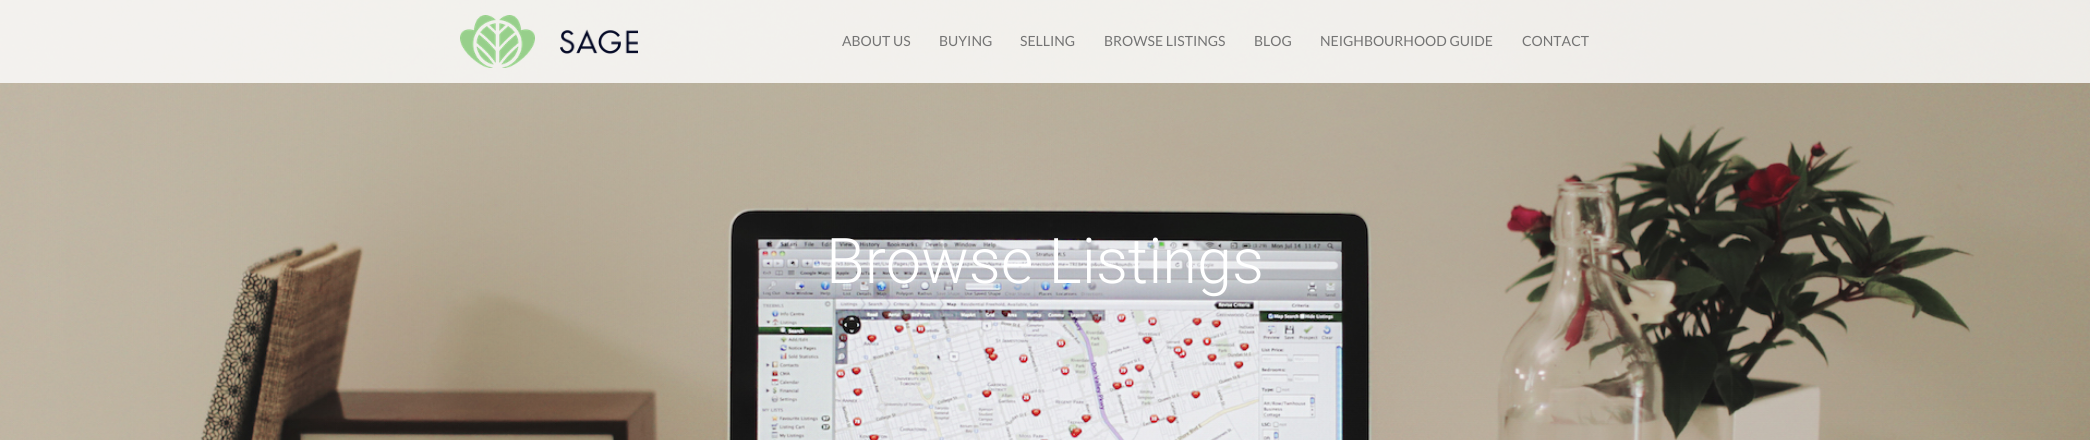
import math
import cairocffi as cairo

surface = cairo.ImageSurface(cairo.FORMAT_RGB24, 2090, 440)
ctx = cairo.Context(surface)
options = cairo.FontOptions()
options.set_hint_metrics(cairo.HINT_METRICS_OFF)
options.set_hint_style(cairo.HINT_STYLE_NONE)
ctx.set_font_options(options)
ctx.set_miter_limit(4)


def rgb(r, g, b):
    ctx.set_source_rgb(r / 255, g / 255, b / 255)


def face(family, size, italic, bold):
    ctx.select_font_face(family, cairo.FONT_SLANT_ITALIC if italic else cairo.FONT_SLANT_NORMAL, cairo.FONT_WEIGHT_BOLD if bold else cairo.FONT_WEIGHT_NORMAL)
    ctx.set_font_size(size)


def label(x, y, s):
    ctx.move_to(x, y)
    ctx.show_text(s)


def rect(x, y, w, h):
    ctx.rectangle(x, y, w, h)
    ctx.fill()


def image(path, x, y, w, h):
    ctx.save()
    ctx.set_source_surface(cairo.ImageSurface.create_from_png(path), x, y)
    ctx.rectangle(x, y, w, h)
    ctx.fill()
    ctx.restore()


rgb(255, 255, 255)
ctx.paint()
image('image2.png', 0, 0, 2090, 440)
ctx.set_source_rgba(1, 1, 1, 0.81)
rect(0, 0, 2090, 83)
image('image0.png', 460, 15, 75, 53)
image('image1.png', 560, 29, 78, 25)
face('Lato', 14, 0, 0)
rgb(116, 116, 116)
label(842, 46, 'ABOUT US')
label(939, 46, 'BUYING')
label(1020, 46, 'SELLING')
label(1104, 46, 'BROWSE LISTINGS')
label(1254, 46, 'BLOG')
label(1320, 46, 'NEIGHBOURHOOD GUIDE')
label(1522, 46, 'CONTACT')
face('Roboto Light', 63, 0, 0)
rgb(255, 255, 255)
label(826, 283, 'Browse Listings')
surface.write_to_png('render.png')
